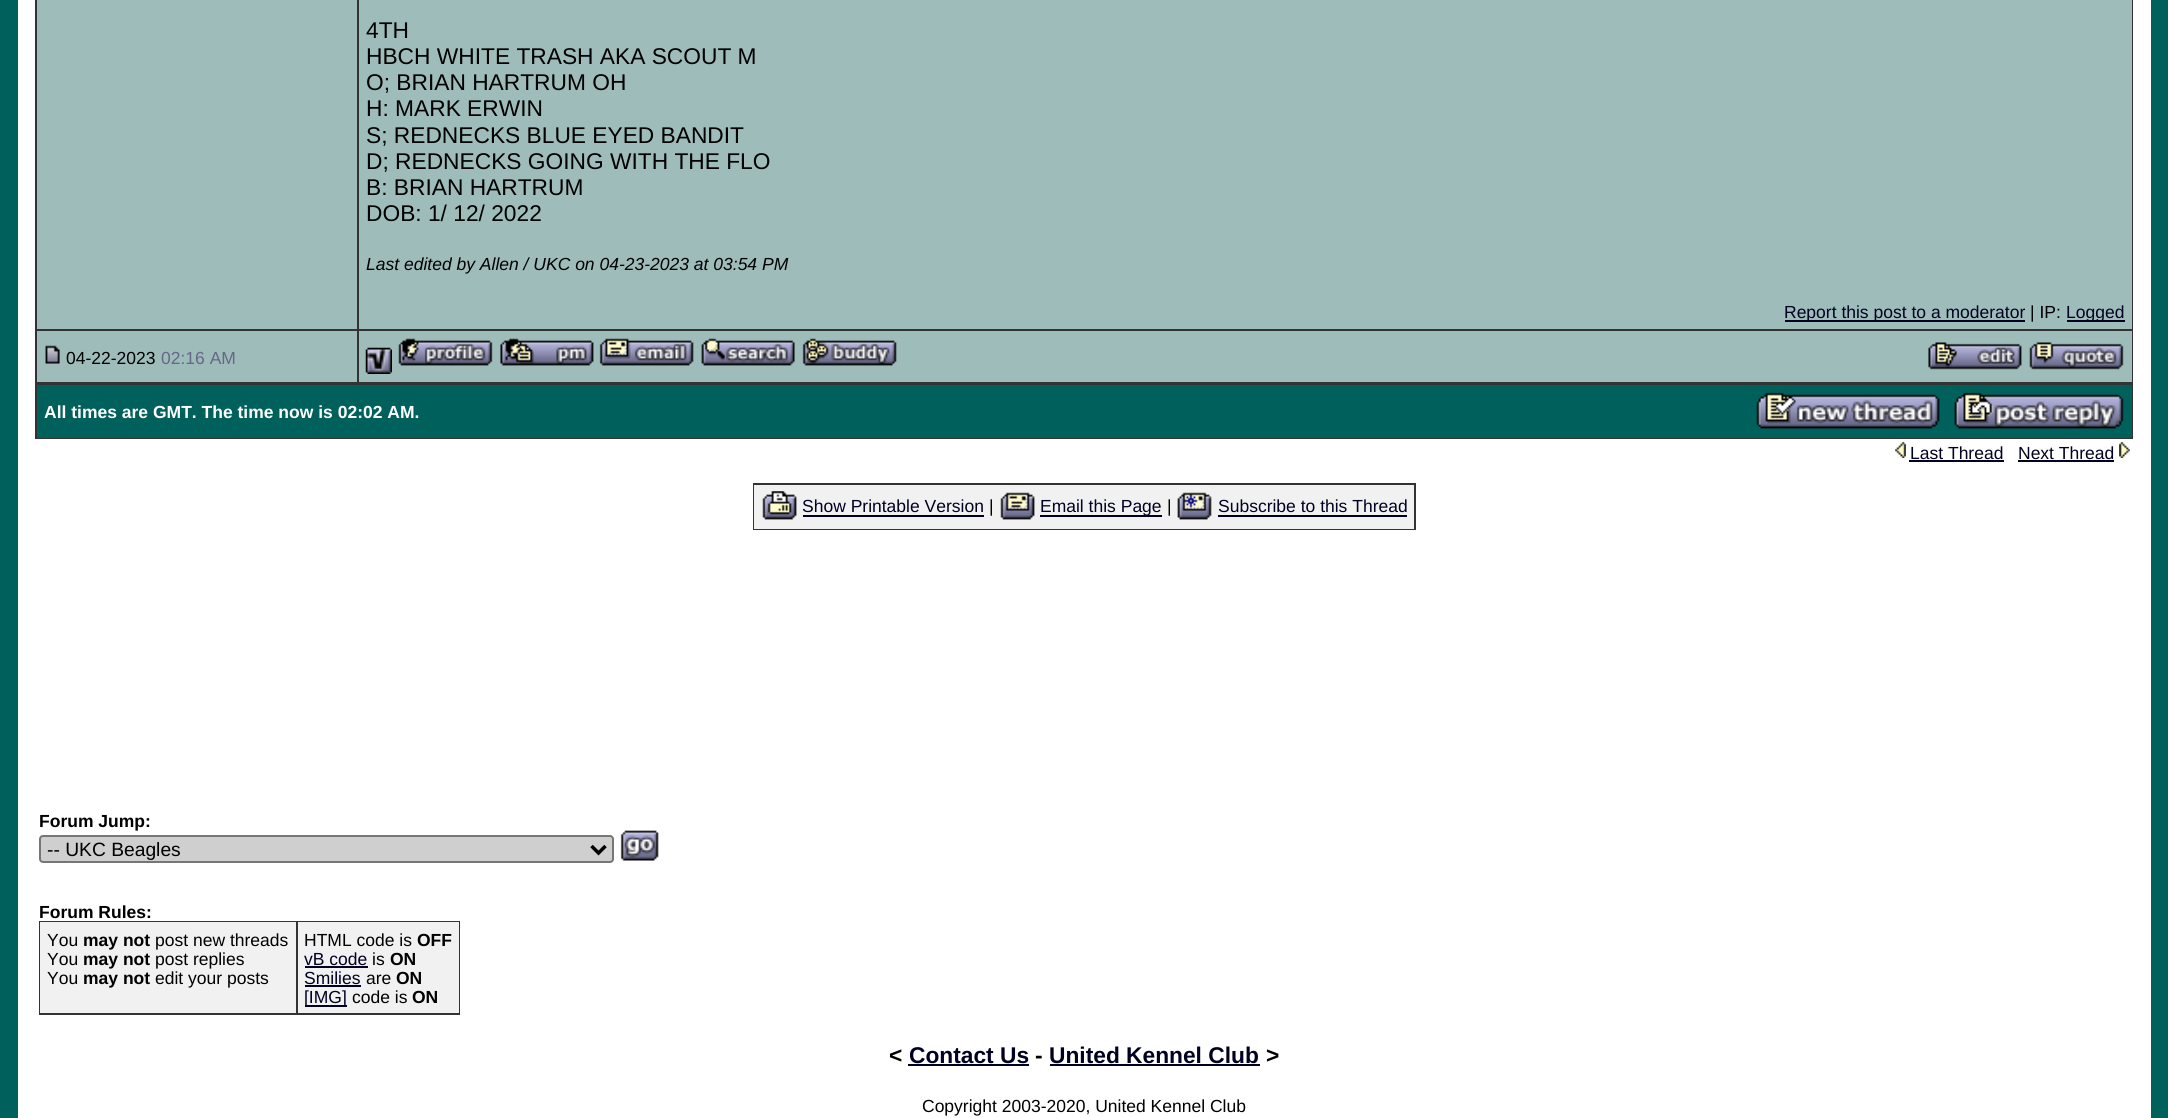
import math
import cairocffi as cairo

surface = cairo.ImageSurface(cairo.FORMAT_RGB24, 2168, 1118)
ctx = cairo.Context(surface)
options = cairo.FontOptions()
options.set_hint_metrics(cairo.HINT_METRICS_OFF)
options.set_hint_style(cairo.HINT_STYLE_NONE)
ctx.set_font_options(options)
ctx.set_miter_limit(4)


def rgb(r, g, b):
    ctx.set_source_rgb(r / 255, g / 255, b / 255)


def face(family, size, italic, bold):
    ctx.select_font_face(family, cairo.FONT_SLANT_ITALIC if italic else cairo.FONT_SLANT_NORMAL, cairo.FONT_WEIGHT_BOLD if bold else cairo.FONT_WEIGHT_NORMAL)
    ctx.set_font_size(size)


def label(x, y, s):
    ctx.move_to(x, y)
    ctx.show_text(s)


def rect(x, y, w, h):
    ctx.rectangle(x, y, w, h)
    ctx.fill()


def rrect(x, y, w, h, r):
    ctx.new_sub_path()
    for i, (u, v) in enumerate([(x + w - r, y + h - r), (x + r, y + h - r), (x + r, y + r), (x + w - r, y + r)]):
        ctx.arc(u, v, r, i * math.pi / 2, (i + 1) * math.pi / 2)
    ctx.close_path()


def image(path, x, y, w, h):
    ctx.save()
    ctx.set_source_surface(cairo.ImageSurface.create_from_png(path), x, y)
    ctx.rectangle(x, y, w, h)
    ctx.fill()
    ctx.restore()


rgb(0, 96, 91)
ctx.paint()
rgb(255, 255, 255)
rect(18, 0, 2133, 1118)
rgb(51, 51, 51)
rect(35, 0, 2098, 439)
rgb(158, 189, 186)
rect(37, 0, 320, 329)
rect(359, 0, 1773, 329)
face('Liberation Sans', 22.75, 0, 0)
rgb(0, 0, 0)
label(366, 38, '4TH')
label(366, 64, 'HBCH WHITE TRASH AKA SCOUT M')
label(366, 90, 'O; BRIAN HARTRUM OH')
label(366, 116, 'H: MARK ERWIN')
label(366, 143, 'S; REDNECKS BLUE EYED BANDIT')
label(366, 169, 'D; REDNECKS GOING WITH THE FLO')
label(366, 195, 'B: BRIAN HARTRUM')
label(366, 221, 'DOB: 1/ 12/ 2022')
face('Liberation Sans', 17.5, 1, 0)
label(366, 270, 'Last edited by Allen / UKC on 04-23-2023 at 03:54 PM')
rgb(0, 0, 32)
rect(1785, 320, 240, 2)
face('Liberation Sans', 17.5, 0, 0)
label(1784, 318, 'Report this post to a moderator')
rgb(0, 0, 0)
label(2030, 318, '| IP:')
rgb(0, 0, 32)
rect(2067, 320, 58, 2)
label(2066, 318, 'Logged')
rgb(158, 189, 186)
rect(37, 331, 320, 51)
image('image0.png', 45, 345, 15, 19)
rgb(0, 0, 0)
label(66, 364, '04-22-2023')
rgb(102, 102, 134)
label(161, 364, '02:16 AM')
rgb(158, 189, 186)
rect(359, 331, 1773, 51)
image('image1.png', 365, 347, 27, 27)
image('image2.png', 398, 338, 95, 28)
image('image3.png', 500, 338, 94, 28)
image('image4.png', 599, 338, 95, 28)
image('image5.png', 701, 338, 94, 28)
image('image6.png', 802, 338, 95, 28)
image('image7.png', 1928, 342, 94, 28)
image('image8.png', 2029, 342, 95, 28)
rgb(0, 96, 91)
rect(37, 385, 2095, 53)
face('Liberation Sans', 17.5, 0, 1)
rgb(255, 255, 255)
label(44, 418, 'All times are GMT. The time now is 02:02 AM.')
image('image9.png', 1756, 392, 184, 37)
image('image10.png', 1954, 392, 170, 37)
image('image11.png', 1895, 442, 11, 16)
face('Liberation Sans', 17.5, 0, 0)
rgb(0, 0, 32)
label(1910, 459, 'Last Thread')
rect(1909, 460, 95, 2)
label(2018, 459, 'Next Thread')
rect(2018, 460, 96, 2)
image('image12.png', 2119, 442, 11, 16)
rgb(51, 51, 51)
rect(753, 483, 663, 47)
rgb(241, 241, 241)
rect(754, 485, 660, 44)
image('image13.png', 762, 491, 35, 29)
rgb(0, 0, 32)
label(802, 512, 'Show Printable Version')
rect(803, 515, 181, 2)
rgb(0, 0, 0)
label(989, 512, '|')
image('image14.png', 1000, 492, 35, 28)
rgb(0, 0, 32)
rect(1040, 515, 122, 2)
label(1040, 512, 'Email this Page')
rgb(0, 0, 0)
label(1167, 512, '|')
image('image15.png', 1177, 492, 35, 28)
rgb(0, 0, 32)
label(1218, 512, 'Subscribe to this Thread')
rect(1218, 515, 189, 2)
face('Liberation Sans', 17.5, 0, 1)
rgb(0, 0, 0)
label(39, 827, 'Forum Jump:')
rgb(207, 207, 207)
rrect(40, 836, 573, 26, 3)
ctx.fill_preserve()
rgb(118, 118, 118)
ctx.stroke()
ctx.new_path()
ctx.move_to(591.5, 846)
ctx.line_to(598.5, 853)
ctx.line_to(605.5, 846)
rgb(0, 0, 0)
ctx.set_line_width(3.5)
ctx.stroke()
face('Liberation Sans', 19.25, 0, 0)
label(47, 856, '-- UKC Beagles')
image('image16.png', 620, 830, 39, 31)
face('Liberation Sans', 17.5, 0, 1)
label(39, 918, 'Forum Rules:')
rgb(51, 51, 51)
rect(39, 921, 421, 94)
rgb(241, 241, 241)
rect(40, 922, 256, 91)
face('Liberation Sans', 17.5, 0, 0)
rgb(0, 0, 0)
label(47, 946, 'You')
face('Liberation Sans', 17.5, 0, 1)
label(83, 946, 'may not')
face('Liberation Sans', 17.5, 0, 0)
label(155, 946, 'post new threads')
label(47, 965, 'You')
face('Liberation Sans', 17.5, 0, 1)
label(83, 965, 'may not')
face('Liberation Sans', 17.5, 0, 0)
label(155, 965, 'post replies')
label(47, 984, 'You')
face('Liberation Sans', 17.5, 0, 1)
label(83, 984, 'may not')
face('Liberation Sans', 17.5, 0, 0)
label(155, 984, 'edit your posts')
rgb(241, 241, 241)
rect(298, 922, 161, 91)
rgb(0, 0, 0)
label(304, 946, 'HTML code is')
face('Liberation Sans', 17.5, 0, 1)
label(417, 946, 'OFF')
face('Liberation Sans', 17.5, 0, 0)
rgb(0, 0, 32)
label(304, 965, 'vB code')
rect(305, 966, 63, 2)
rgb(0, 0, 0)
label(372, 965, 'is')
face('Liberation Sans', 17.5, 0, 1)
label(390, 965, 'ON')
face('Liberation Sans', 17.5, 0, 0)
rgb(0, 0, 32)
label(304, 984, 'Smilies')
rect(305, 985, 56, 2)
rgb(0, 0, 0)
label(366, 984, 'are')
face('Liberation Sans', 17.5, 0, 1)
label(396, 984, 'ON')
rgb(0, 0, 32)
rect(305, 1005, 42, 2)
face('Liberation Sans', 17.5, 0, 0)
label(304, 1003, '[IMG]')
rgb(0, 0, 0)
label(352, 1003, 'code is')
face('Liberation Sans', 17.5, 0, 1)
label(412, 1003, 'ON')
face('Liberation Sans', 22.75, 0, 1)
label(889, 1063, '<')
rgb(0, 0, 32)
label(909, 1063, 'Contact Us')
rect(908, 1064, 121, 2)
rgb(0, 0, 0)
label(1035, 1063, '-')
rgb(0, 0, 32)
label(1049, 1063, 'United Kennel Club')
rect(1050, 1064, 210, 2)
rgb(0, 0, 0)
label(1266, 1063, '>')
face('Liberation Sans', 17.5, 0, 0)
label(922, 1112, 'Copyright 2003-2020, United Kennel Club')
surface.write_to_png('render.png')
